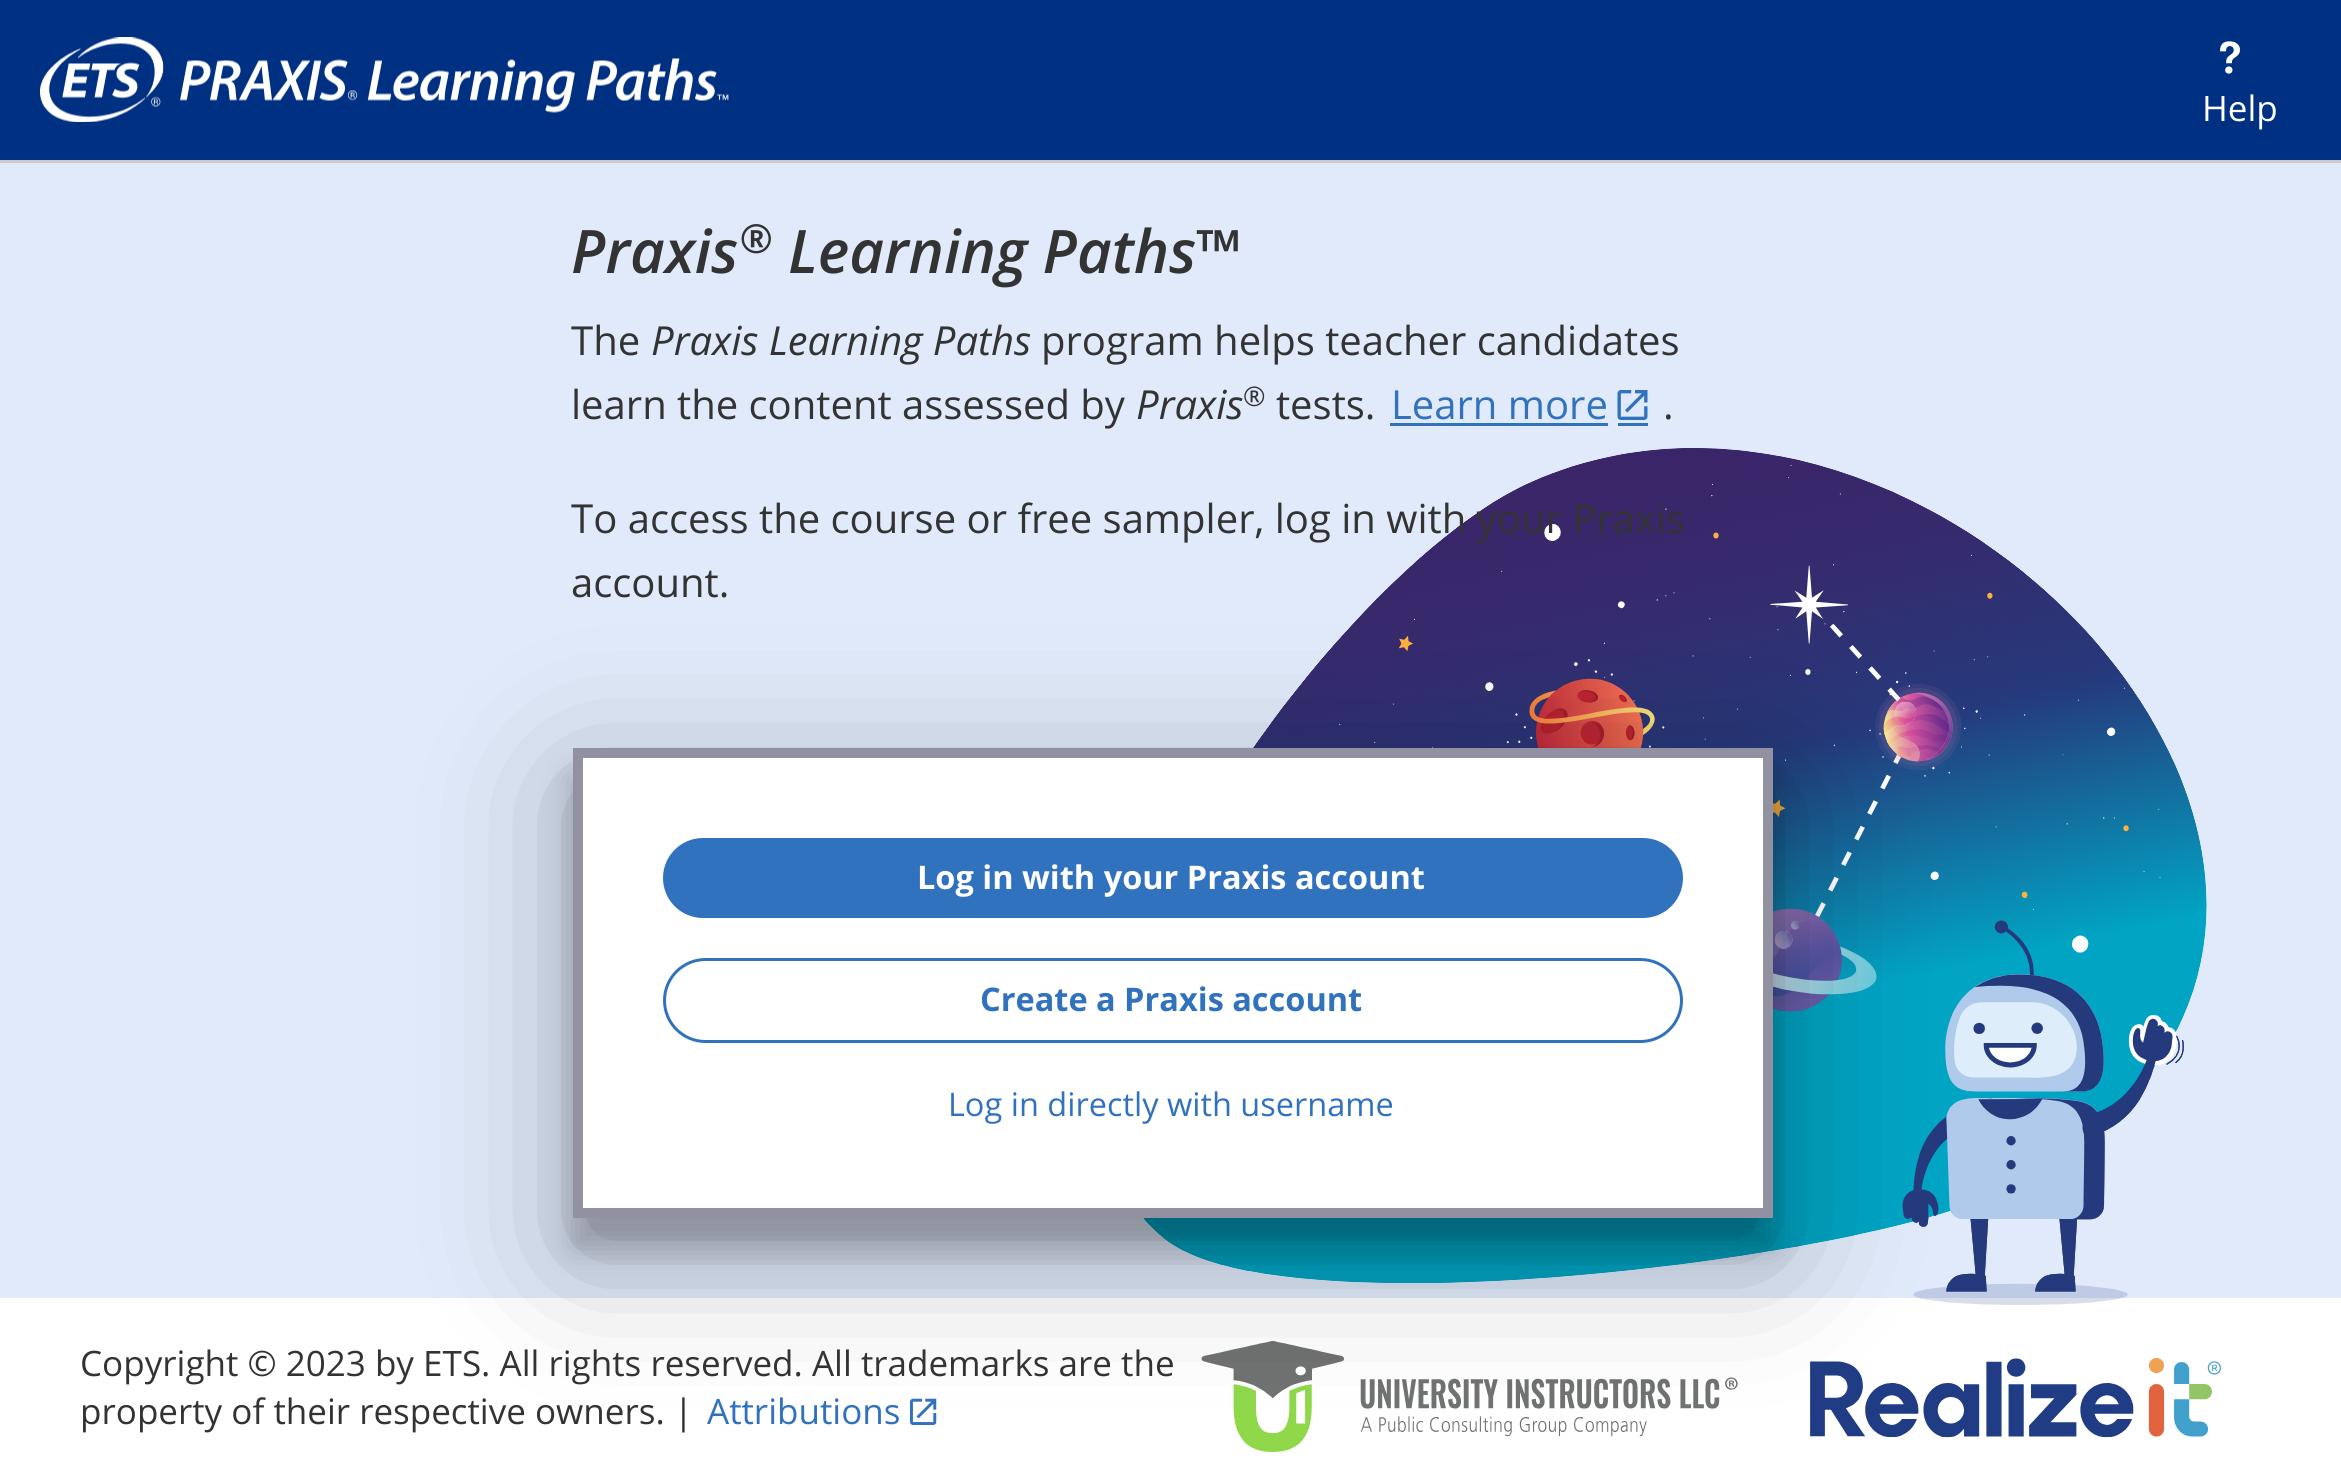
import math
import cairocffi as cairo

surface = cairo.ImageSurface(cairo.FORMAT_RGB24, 2341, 1484)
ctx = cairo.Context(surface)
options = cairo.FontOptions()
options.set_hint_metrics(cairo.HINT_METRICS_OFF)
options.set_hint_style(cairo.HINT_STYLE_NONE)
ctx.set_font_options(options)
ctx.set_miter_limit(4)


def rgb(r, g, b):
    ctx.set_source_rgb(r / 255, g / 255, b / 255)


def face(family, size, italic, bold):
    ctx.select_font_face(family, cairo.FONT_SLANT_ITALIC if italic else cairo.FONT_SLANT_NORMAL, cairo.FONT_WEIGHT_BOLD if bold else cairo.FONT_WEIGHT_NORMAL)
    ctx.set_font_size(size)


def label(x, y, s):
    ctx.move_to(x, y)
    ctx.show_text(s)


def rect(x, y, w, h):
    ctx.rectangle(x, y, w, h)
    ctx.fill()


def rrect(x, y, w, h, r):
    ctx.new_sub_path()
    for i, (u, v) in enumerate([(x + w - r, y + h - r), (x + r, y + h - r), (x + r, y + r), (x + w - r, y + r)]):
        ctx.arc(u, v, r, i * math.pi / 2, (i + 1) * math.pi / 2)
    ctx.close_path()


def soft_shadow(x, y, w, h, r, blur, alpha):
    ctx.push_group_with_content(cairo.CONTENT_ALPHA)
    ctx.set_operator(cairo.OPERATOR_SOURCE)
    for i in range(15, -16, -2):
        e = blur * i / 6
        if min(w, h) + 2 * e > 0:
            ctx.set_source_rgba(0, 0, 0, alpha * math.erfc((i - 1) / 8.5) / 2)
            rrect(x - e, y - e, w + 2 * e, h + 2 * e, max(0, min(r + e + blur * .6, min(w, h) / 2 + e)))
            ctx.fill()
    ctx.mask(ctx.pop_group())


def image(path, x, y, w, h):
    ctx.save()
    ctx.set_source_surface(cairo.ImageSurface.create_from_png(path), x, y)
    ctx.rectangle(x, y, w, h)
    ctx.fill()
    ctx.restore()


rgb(224, 234, 250)
ctx.paint()
rgb(0, 48, 130)
rect(0, 0, 2341, 160)
rgb(204, 204, 204)
rect(0, 160, 2341, 3)
image('image0.png', 40, 37, 689, 85)
image('image1.png', 2220, 41, 20, 33)
face('Open Sans', 35, 0, 0)
rgb(255, 255, 255)
label(2202, 121, 'Help')
face('Open Sans SemiBold', 60, 1, 0)
rgb(51, 51, 51)
label(571, 273, 'Praxis')
face('Open Sans SemiBold', 40, 1, 0)
label(739, 253, '®')
face('Open Sans SemiBold', 60, 1, 0)
label(788, 273, 'Learning Paths')
face('Open Sans SemiBold', 60, 0, 0)
label(1196, 273, '™')
face('Open Sans', 40, 0, 0)
label(571, 355, 'The')
face('Open Sans', 40, 1, 0)
label(651, 355, 'Praxis Learning Paths')
face('Open Sans', 40, 0, 0)
label(1041, 355, 'program helps teacher candidates')
label(571, 419, 'learn the content assessed by')
face('Open Sans', 40, 1, 0)
label(1136, 419, 'Praxis')
face('Open Sans', 27, 0, 0)
label(1243, 406, '®')
face('Open Sans', 40, 0, 0)
label(1276, 419, 'tests.')
rgb(48, 114, 190)
label(1391, 419, 'Learn more')
rect(1390, 423, 218, 3)
rect(1618, 423, 30, 3)
image('image2.png', 1617, 390, 31, 30)
rgb(51, 51, 51)
label(1663, 419, '.')
rgb(255, 255, 255)
rect(0, 1298, 2341, 186)
image('image3.png', 1143, 448, 1064, 857)
image('image4.png', 1143, 448, 1064, 857)
rgb(51, 51, 51)
label(571, 533, 'To access the course or free sampler, log in with your Praxis')
image('image5.png', 910, 1398, 27, 27)
image('image6.png', 1201, 1341, 537, 111)
image('image7.png', 1810, 1358, 411, 80)
rgb(0, 0, 0)
soft_shadow(573, 783, 1200, 470, 0, 72.5, 0.3)
rgb(51, 51, 51)
label(571, 597, 'account.')
rgb(0, 0, 0)
soft_shadow(573, 778, 1200, 470, 0, 15, 0.22)
rgb(255, 255, 255)
ctx.rectangle(578, 753, 1190, 460)
ctx.fill_preserve()
rgb(145, 145, 161)
ctx.set_line_width(10)
ctx.stroke()
rgb(48, 114, 190)
rrect(663, 838, 1020, 80, 40)
ctx.fill()
face('Open Sans', 32.5, 0, 1)
rgb(255, 255, 255)
label(917, 889, 'Log in with your Praxis account')
rrect(664.5, 959.5, 1017, 82, 41)
rgb(48, 114, 190)
ctx.set_line_width(3)
ctx.stroke()
label(980, 1011, 'Create a Praxis account')
face('Open Sans', 32.5, 0, 0)
label(948, 1116, 'Log in directly with username')
face('Open Sans', 35, 0, 0)
rgb(51, 51, 51)
label(80, 1376, 'Copyright © 2023 by ETS. All rights reserved. All trademarks are the')
label(80, 1424, 'property of their respective owners. |')
rgb(48, 114, 190)
label(707, 1424, 'Attributions')
surface.write_to_png('render.png')
